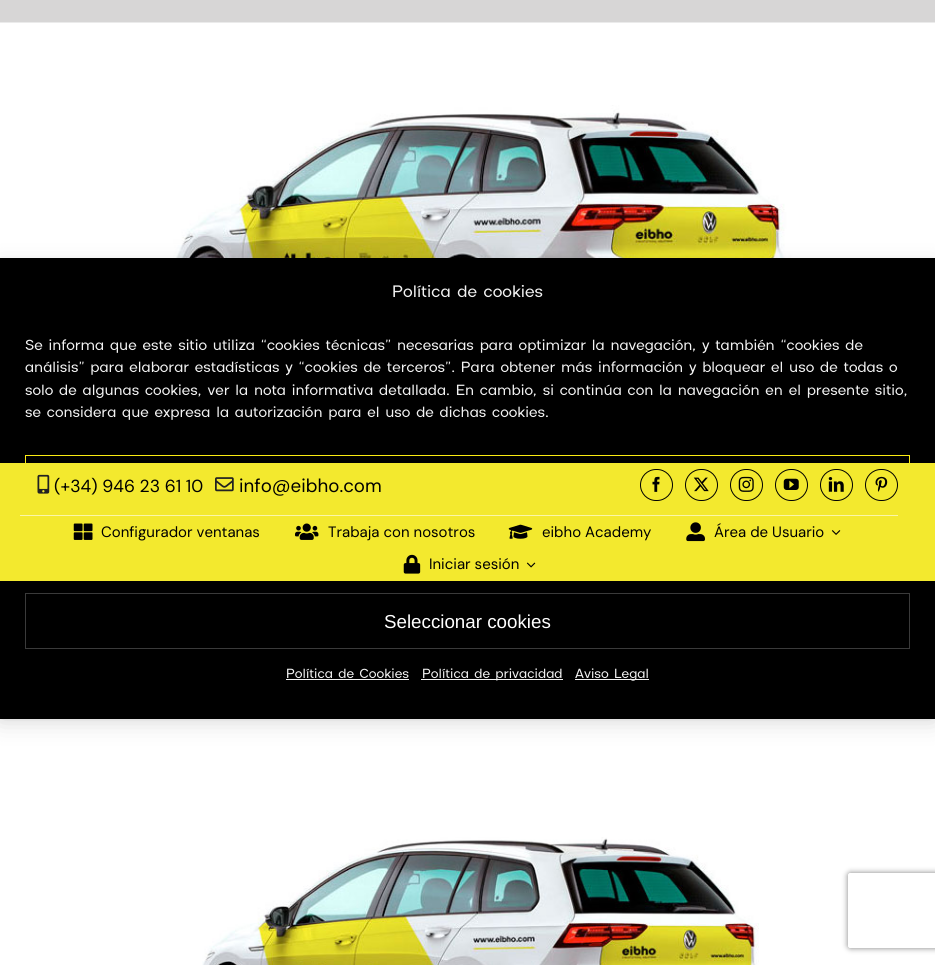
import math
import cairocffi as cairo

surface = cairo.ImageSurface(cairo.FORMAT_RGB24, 935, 965)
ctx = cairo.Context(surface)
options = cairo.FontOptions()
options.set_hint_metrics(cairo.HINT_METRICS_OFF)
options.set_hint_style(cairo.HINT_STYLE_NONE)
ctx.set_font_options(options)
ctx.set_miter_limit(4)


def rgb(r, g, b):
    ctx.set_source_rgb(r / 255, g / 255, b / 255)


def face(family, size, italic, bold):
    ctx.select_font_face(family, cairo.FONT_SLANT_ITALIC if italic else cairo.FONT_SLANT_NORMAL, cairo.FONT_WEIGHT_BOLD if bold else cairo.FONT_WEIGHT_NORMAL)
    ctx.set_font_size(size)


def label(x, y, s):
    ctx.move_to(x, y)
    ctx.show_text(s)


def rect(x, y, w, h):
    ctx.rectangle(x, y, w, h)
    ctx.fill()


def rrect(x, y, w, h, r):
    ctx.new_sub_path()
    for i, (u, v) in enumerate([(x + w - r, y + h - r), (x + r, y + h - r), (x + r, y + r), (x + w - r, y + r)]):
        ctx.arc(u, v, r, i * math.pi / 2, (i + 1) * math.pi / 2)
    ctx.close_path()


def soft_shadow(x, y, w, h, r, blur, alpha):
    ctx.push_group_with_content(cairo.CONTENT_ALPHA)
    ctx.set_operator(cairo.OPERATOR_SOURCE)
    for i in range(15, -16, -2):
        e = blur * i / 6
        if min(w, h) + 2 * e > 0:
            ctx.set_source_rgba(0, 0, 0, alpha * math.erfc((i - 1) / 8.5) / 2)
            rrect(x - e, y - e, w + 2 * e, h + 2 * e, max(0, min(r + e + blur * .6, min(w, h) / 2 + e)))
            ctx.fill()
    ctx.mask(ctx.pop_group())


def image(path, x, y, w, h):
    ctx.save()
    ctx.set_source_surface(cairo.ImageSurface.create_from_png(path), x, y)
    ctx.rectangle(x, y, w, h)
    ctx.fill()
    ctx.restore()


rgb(215, 214, 214)
ctx.paint()
rgb(255, 255, 255)
rect(0, 719, 935, 246)
rgb(0, 0, 0)
rect(0, 706, 935, 13)
image('image0.png', 0, 22, 935, 236)
rgb(0, 0, 0)
soft_shadow(0, 265, 935, 449, 0, 4, 0.23)
soft_shadow(0, 270, 935, 449, 0, 12.5, 0.19)
rgb(0, 0, 0)
rect(0, 258, 935, 448)
face('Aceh', 18.75, 0, 0)
rgb(242, 242, 242)
label(392, 297, 'Política de cookies')
face('Aceh', 16.67, 0, 0)
label(25, 350, 'Se informa que este sitio utiliza “cookies técnicas” necesarias para optimizar la navegación, y también “cookies de')
label(25, 372, 'análisis” para elaborar estadísticas y “cookies de terceros”. Para obtener más información y bloquear el uso de todas o')
label(25, 395, 'solo de algunas cookies, ver la nota informativa detallada. En cambio, si continúa con la navegación en el presente sitio,')
label(25, 417, 'se considera que expresa la autorización para el uso de dichas cookies.')
ctx.rectangle(25.5, 455.5, 884, 55)
rgb(251, 235, 18)
ctx.set_line_width(1)
ctx.stroke()
ctx.rectangle(25.5, 593.5, 884, 55)
rgb(58, 58, 58)
ctx.stroke()
face('Liberation Sans', 18.75, 0, 0)
rgb(255, 255, 255)
label(384, 628, 'Seleccionar cookies')
face('Aceh', 15, 0, 0)
rgb(242, 242, 242)
label(286, 678, 'Política de Cookies')
rect(286, 679, 123, 1)
rect(421, 679, 142, 1)
label(422, 678, 'Política de privacidad')
rect(575, 679, 74, 1)
label(575, 678, 'Aviso Legal')
rgb(243, 233, 46)
rect(0, 463, 935, 118)
image('image1.png', 37, 474, 13, 20)
face('DM Sans', 17.5, 0, 0)
rgb(0, 0, 0)
label(54, 492, '(+34) 946 23 61 10')
image('image2.png', 215, 477, 19, 15)
face('DM Sans', 18.75, 0, 0)
label(239, 492, 'info@eibho.com')
rrect(640.5, 469.5, 32, 31, 15.5)
ctx.stroke()
image('image3.png', 652, 476, 8, 16)
rrect(685.5, 469.5, 32, 31, 15.5)
ctx.stroke()
image('image4.png', 693, 477, 16, 15)
rrect(730.5, 469.5, 32, 31, 15.5)
ctx.stroke()
image('image5.png', 738, 476, 16, 16)
rrect(775.5, 469.5, 32, 31, 15.5)
ctx.stroke()
image('image6.png', 783, 478, 16, 12)
rrect(820.5, 469.5, 32, 31, 15.5)
ctx.stroke()
image('image7.png', 828, 477, 16, 15)
rrect(865.5, 469.5, 32, 31, 15.5)
ctx.stroke()
image('image8.png', 875, 476, 13, 16)
rgb(250, 246, 169)
rect(20, 515, 878, 1)
image('image9.png', 73, 523, 20, 17)
face('DM Sans', 15, 0, 0)
rgb(0, 0, 0)
label(101, 537, 'Configurador ventanas')
image('image10.png', 295, 523, 24, 17)
label(328, 537, 'Trabaja con nosotros')
image('image11.png', 508, 524, 25, 15)
label(542, 537, 'eibho Academy')
image('image12.png', 686, 522, 19, 20)
label(714, 537, 'Área de Usuario')
image('image13.png', 831, 530, 10, 5)
image('image14.png', 403, 554, 18, 20)
label(429, 569, 'Iniciar sesión')
image('image15.png', 526, 562, 10, 6)
image('image16.png', 202, 837, 557, 128)
ctx.save()
ctx.set_fill_rule(cairo.FILL_RULE_EVEN_ODD)
ctx.new_path()
ctx.move_to(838, 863)
ctx.line_to(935, 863)
ctx.line_to(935, 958)
ctx.line_to(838, 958)
ctx.close_path()
ctx.move_to(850.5, 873)
ctx.line_to(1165.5, 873)
ctx.curve_to(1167, 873, 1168, 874, 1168, 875.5)
ctx.line_to(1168, 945.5)
ctx.curve_to(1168, 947, 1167, 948, 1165.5, 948)
ctx.line_to(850.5, 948)
ctx.curve_to(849, 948, 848, 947, 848, 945.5)
ctx.line_to(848, 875.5)
ctx.curve_to(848, 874, 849, 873, 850.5, 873)
ctx.close_path()
ctx.clip()
rgb(128, 128, 128)
soft_shadow(848, 873, 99, 75, 2.5, 3, 1)
ctx.restore()
surface.write_to_png('render.png')
